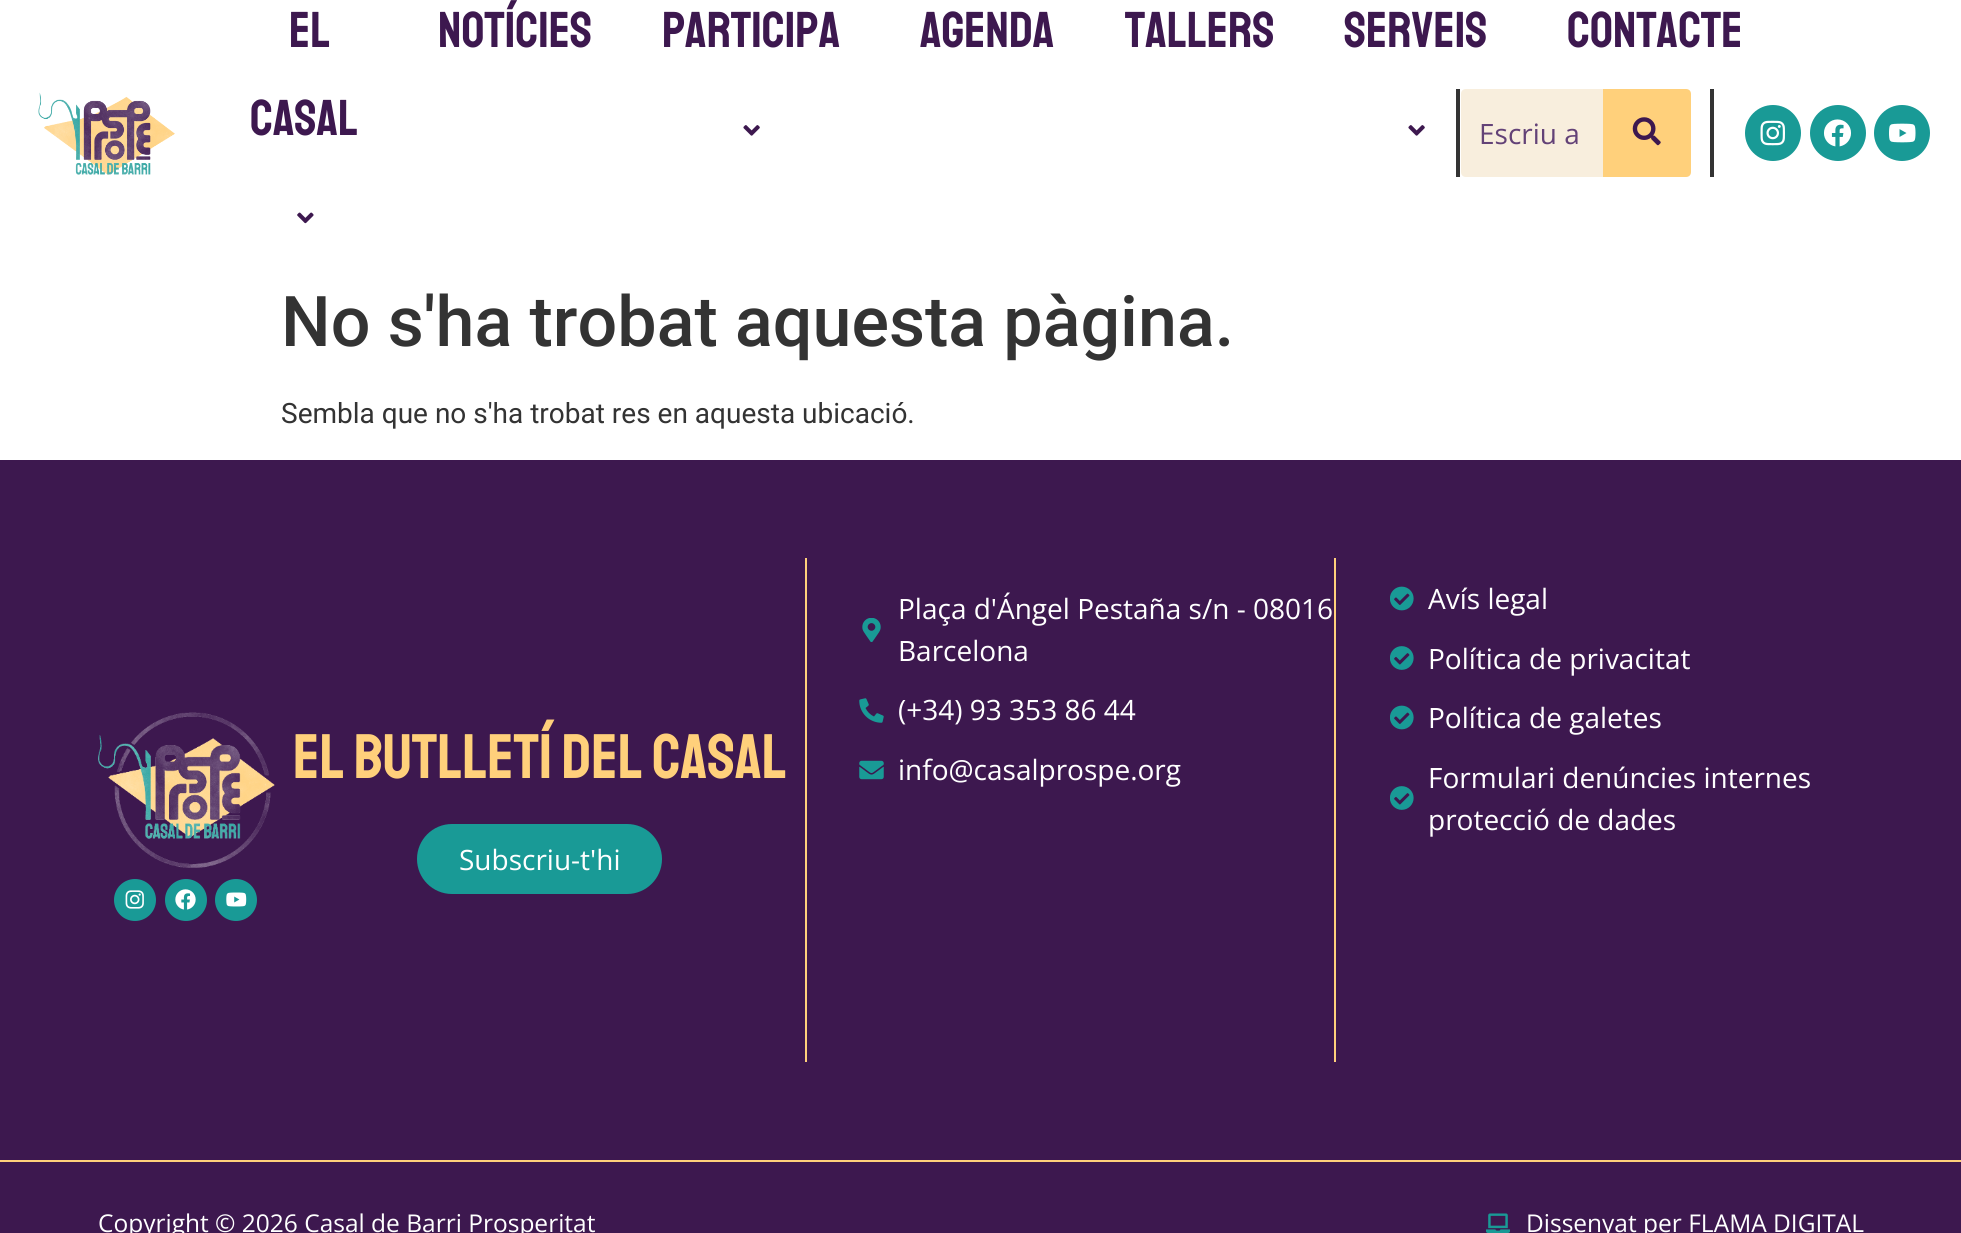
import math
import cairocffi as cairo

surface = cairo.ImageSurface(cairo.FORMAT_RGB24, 1961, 1233)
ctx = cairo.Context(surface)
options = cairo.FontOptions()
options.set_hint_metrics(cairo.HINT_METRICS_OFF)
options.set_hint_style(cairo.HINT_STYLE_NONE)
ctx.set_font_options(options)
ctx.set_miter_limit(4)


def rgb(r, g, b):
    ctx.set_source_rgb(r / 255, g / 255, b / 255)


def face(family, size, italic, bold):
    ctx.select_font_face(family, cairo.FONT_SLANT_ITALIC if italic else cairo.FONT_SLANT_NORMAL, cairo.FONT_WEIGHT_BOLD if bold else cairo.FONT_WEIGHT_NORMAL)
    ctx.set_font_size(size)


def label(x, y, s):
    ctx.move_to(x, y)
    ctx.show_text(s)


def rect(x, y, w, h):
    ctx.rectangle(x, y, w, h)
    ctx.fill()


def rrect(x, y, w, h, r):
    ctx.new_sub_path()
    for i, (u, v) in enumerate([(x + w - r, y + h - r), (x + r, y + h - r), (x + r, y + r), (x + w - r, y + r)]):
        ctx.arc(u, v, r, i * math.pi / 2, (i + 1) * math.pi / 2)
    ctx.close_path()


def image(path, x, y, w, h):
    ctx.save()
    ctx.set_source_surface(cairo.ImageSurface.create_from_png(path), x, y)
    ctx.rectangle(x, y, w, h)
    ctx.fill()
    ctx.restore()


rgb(255, 255, 255)
ctx.paint()
image('image0.png', 38, 92, 137, 83)
face('Staatliches', 50.5, 0, 0)
rgb(61, 24, 79)
label(289, 47, 'El')
label(250, 135, 'Casal')
image('image1.png', 297, 212, 17, 12)
label(438, 47, 'Notícies')
label(662, 47, 'Participa')
image('image2.png', 743, 125, 17, 11)
label(920, 47, 'Agenda')
label(1125, 47, 'Tallers')
label(1344, 47, 'Serveis')
image('image2.png', 1408, 125, 17, 11)
label(1567, 47, 'Contacte')
rgb(25, 154, 150)
ctx.new_path()
ctx.arc(1773, 133, 28, 0, 2 * math.pi)
ctx.fill()
image('image3.png', 1760, 120, 25, 26)
ctx.arc(1838, 133, 28, 0, 2 * math.pi)
ctx.fill()
image('image4.png', 1824, 119, 27, 28)
ctx.arc(1902, 133, 28, 0, 2 * math.pi)
ctx.fill()
image('image5.png', 1889, 123, 27, 20)
rgb(51, 51, 51)
rect(1710, 89, 4, 88)
rect(1456, 89, 4, 88)
rgb(248, 238, 221)
ctx.new_path()
ctx.move_to(1466, 89)
ctx.line_to(1603, 89)
ctx.line_to(1603, 177)
ctx.line_to(1466, 177)
ctx.curve_to(1463, 177, 1461, 175, 1461, 172)
ctx.line_to(1461, 94)
ctx.curve_to(1461, 91, 1463, 89, 1466, 89)
ctx.close_path()
ctx.fill()
face('Open Sans', 28, 0, 0)
rgb(99, 66, 119)
label(1479, 144, 'Escriu a')
rgb(255, 208, 123)
ctx.new_path()
ctx.move_to(1603, 89)
ctx.line_to(1686, 89)
ctx.curve_to(1689, 89, 1691, 91, 1691, 94)
ctx.line_to(1691, 172)
ctx.curve_to(1691, 175, 1689, 177, 1686, 177)
ctx.line_to(1603, 177)
ctx.close_path()
ctx.fill()
image('image6.png', 1632, 117, 29, 29)
face('Roboto Medium', 70, 0, 0)
rgb(51, 51, 51)
label(281, 346, 'No s\'ha trobat aquesta pàgina.')
face('Roboto', 28, 0, 0)
label(281, 423, 'Sembla que no s\'ha trobat res en aquesta ubicació.')
rgb(61, 24, 79)
rect(0, 460, 1961, 700)
rgb(255, 208, 123)
rect(805, 558, 2, 504)
image('image7.png', 862, 618, 19, 24)
face('Open Sans', 28, 0, 0)
rgb(255, 255, 255)
label(898, 619, 'Plaça d\'Ángel Pestaña s/n - 08016')
label(898, 661, 'Barcelona')
image('image8.png', 859, 698, 25, 25)
label(898, 720, '(+34) 93 353 86 44')
image('image9.png', 859, 760, 25, 20)
label(898, 780, 'info@casalprospe.org')
rgb(255, 208, 123)
rect(1334, 558, 2, 504)
image('image10.png', 1390, 586, 24, 25)
rgb(255, 255, 255)
label(1428, 609, 'Avís legal')
image('image11.png', 1390, 646, 24, 24)
label(1428, 669, 'Política de privacitat')
image('image10.png', 1390, 705, 24, 25)
label(1428, 728, 'Política de galetes')
image('image11.png', 1390, 786, 24, 24)
label(1428, 788, 'Formulari denúncies internes')
label(1428, 830, 'protecció de dades')
image('image12.png', 98, 712, 177, 156)
rgb(25, 154, 150)
ctx.arc(135, 900, 21, 0, 2 * math.pi)
ctx.fill()
image('image13.png', 125, 890, 19, 19)
ctx.arc(186, 900, 21, 0, 2 * math.pi)
ctx.fill()
image('image14.png', 175, 889, 21, 21)
ctx.arc(236, 900, 21, 0, 2 * math.pi)
ctx.fill()
image('image15.png', 226, 892, 21, 15)
face('Staatliches', 63, 0, 0)
rgb(255, 208, 123)
label(293, 778, 'El buTlletí del casal')
rgb(25, 154, 150)
rrect(417, 824, 245, 70, 35)
ctx.fill()
face('Open Sans', 28, 0, 0)
rgb(255, 255, 255)
label(459, 870, 'Subscriu-t\'hi')
rgb(61, 24, 79)
rect(0, 1162, 1961, 71)
rgb(255, 208, 123)
rect(0, 1160, 1961, 2)
face('Open Sans', 24.5, 0, 0)
rgb(255, 255, 255)
label(98, 1232, 'Copyright © 2026 Casal de Barri Prosperitat')
image('image16.png', 1486, 1213, 24, 20)
label(1526, 1232, 'Dissenyat per FLAMA DIGITAL')
surface.write_to_png('render.png')
